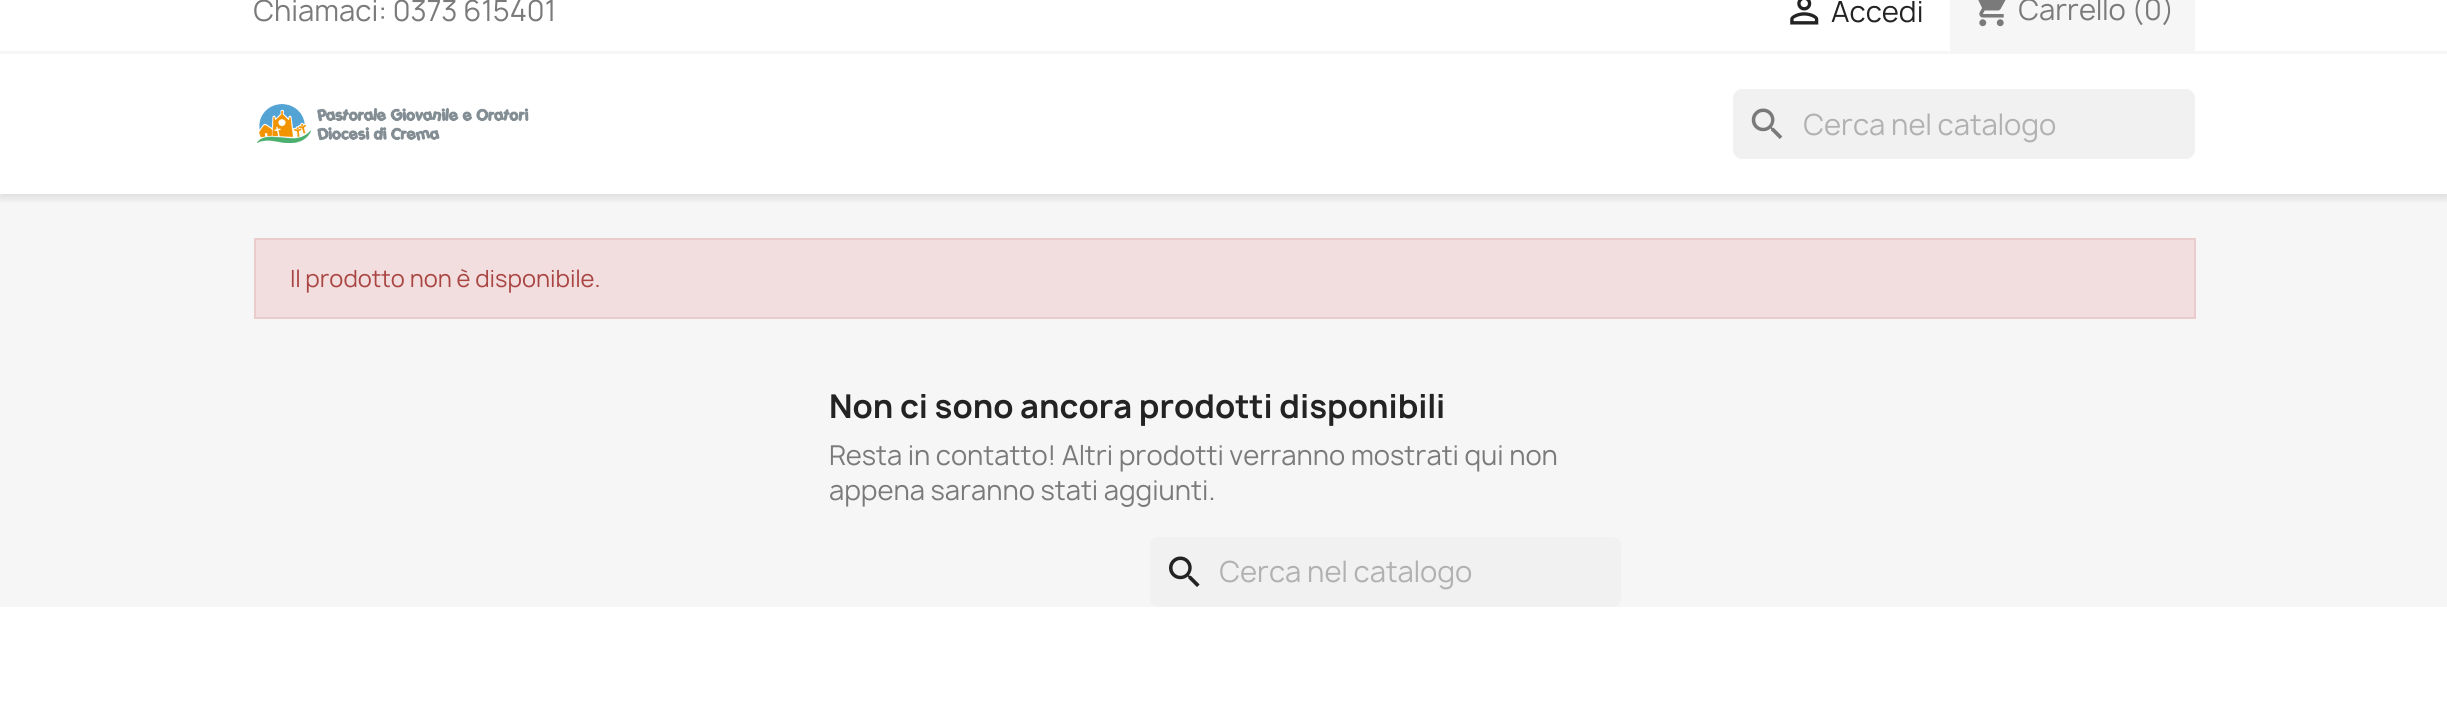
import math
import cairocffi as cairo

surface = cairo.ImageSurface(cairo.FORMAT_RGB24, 2447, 714)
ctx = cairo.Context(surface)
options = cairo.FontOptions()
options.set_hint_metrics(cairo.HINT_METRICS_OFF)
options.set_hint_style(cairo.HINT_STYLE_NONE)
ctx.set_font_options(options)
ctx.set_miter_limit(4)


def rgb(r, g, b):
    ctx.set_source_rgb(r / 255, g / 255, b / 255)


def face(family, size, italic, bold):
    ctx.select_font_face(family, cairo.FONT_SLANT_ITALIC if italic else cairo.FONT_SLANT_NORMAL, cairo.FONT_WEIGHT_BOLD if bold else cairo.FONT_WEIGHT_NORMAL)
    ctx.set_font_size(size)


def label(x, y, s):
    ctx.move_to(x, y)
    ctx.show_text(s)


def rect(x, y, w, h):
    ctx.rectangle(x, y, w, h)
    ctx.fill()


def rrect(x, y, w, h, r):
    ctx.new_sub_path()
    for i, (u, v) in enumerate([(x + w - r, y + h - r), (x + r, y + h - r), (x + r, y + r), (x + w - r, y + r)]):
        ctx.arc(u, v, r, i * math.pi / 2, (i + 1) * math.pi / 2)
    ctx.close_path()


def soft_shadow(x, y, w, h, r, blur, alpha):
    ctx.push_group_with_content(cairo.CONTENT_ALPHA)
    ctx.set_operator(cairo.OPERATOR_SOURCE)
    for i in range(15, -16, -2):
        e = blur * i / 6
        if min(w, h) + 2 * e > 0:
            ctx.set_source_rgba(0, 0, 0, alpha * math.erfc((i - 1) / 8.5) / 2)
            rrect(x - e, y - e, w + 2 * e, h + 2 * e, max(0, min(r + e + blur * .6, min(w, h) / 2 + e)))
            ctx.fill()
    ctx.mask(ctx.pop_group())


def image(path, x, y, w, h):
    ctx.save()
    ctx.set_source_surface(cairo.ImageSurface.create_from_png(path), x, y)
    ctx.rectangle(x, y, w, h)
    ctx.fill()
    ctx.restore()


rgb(255, 255, 255)
ctx.paint()
rgb(246, 246, 246)
rect(0, 194, 2447, 413)
ctx.save()
ctx.rectangle(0, 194, 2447, 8)
ctx.clip()
rgb(0, 0, 0)
soft_shadow(0, -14, 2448, 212, 0, 4.5, 0.11)
ctx.restore()
rect(0, 51, 2447, 3)
face('Manrope', 28, 0, 0)
rgb(122, 122, 122)
label(253, 21, 'Chiamaci: 0373 615401')
image('image0.png', 1790, 0, 29, 25)
rgb(35, 35, 35)
label(1831, 22, 'Accedi')
rgb(246, 246, 246)
rect(1950, 0, 245, 51)
image('image1.png', 1978, 0, 28, 27)
rgb(122, 122, 122)
label(2018, 20, 'Carrello (0)')
image('image2.png', 256, 104, 273, 39)
rgb(241, 241, 241)
rrect(1733, 89, 462, 70, 9)
ctx.fill()
image('image3.png', 1751, 108, 32, 31)
rgb(177, 177, 177)
label(1803, 135, 'Cerca nel catalogo')
rgb(242, 222, 222)
ctx.rectangle(255, 239, 1940, 79)
ctx.fill_preserve()
rgb(235, 204, 204)
ctx.stroke()
face('Manrope', 22.75, 0, 0)
rgb(169, 68, 66)
label(290, 287, 'Il prodotto non è disponibile.')
face('Manrope', 31.5, 0, 1)
rgb(35, 35, 35)
label(829, 418, 'Non ci sono ancora prodotti disponibili')
face('Manrope', 26.25, 0, 0)
rgb(122, 122, 122)
label(829, 465, 'Resta in contatto! Altri prodotti verranno mostrati qui non')
label(829, 500, 'appena saranno stati aggiunti.')
rgb(241, 241, 241)
rrect(1150, 537, 471, 70, 9)
ctx.fill()
image('image4.png', 1169, 556, 31, 31)
face('Manrope', 28, 0, 0)
rgb(177, 177, 177)
label(1219, 582, 'Cerca nel catalogo')
surface.write_to_png('render.png')
